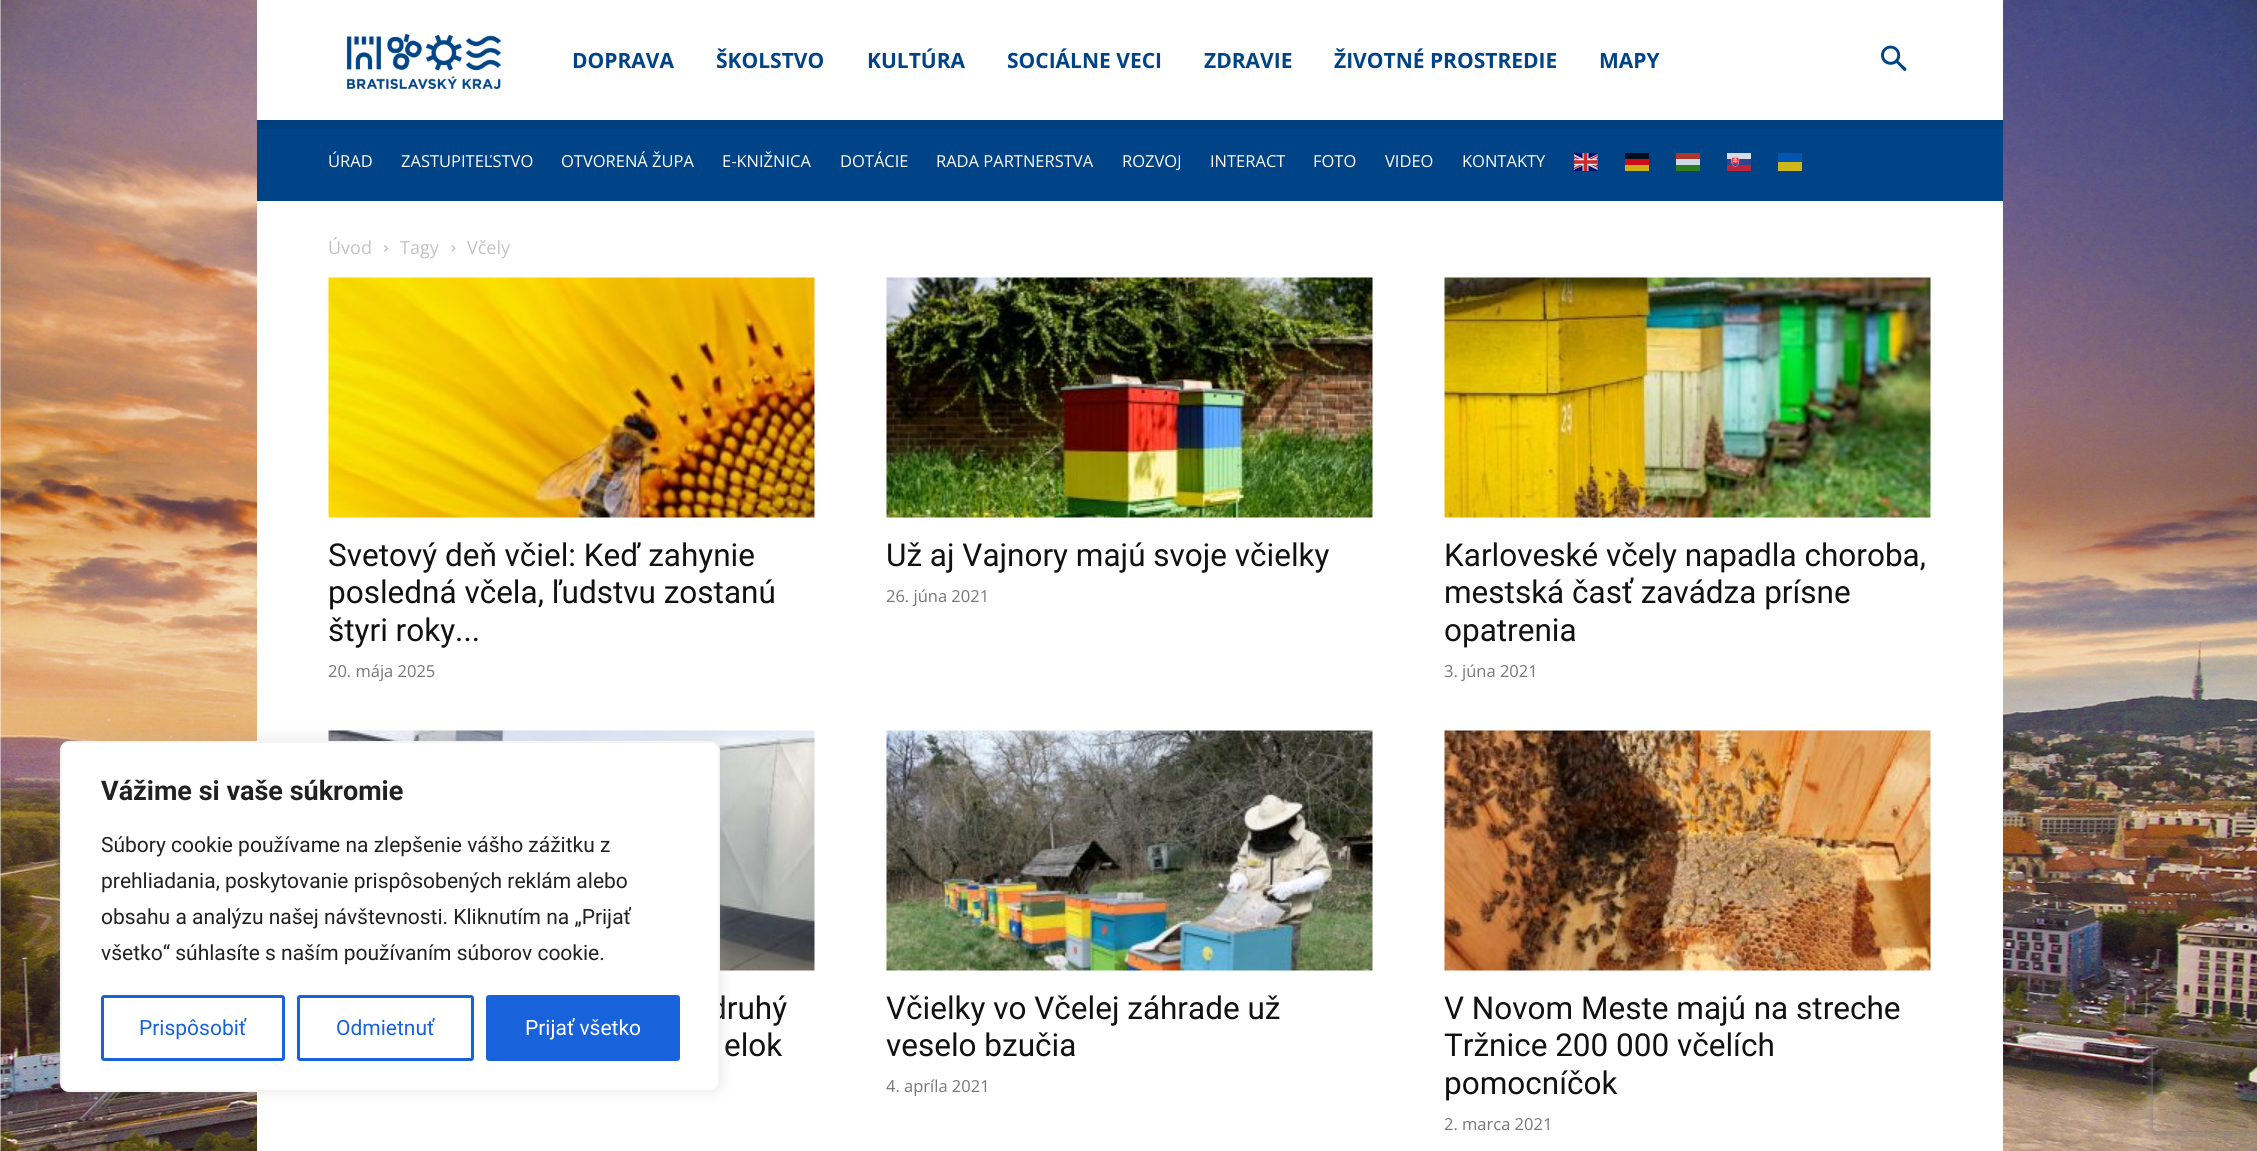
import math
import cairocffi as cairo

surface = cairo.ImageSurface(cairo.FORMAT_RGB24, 2257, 1151)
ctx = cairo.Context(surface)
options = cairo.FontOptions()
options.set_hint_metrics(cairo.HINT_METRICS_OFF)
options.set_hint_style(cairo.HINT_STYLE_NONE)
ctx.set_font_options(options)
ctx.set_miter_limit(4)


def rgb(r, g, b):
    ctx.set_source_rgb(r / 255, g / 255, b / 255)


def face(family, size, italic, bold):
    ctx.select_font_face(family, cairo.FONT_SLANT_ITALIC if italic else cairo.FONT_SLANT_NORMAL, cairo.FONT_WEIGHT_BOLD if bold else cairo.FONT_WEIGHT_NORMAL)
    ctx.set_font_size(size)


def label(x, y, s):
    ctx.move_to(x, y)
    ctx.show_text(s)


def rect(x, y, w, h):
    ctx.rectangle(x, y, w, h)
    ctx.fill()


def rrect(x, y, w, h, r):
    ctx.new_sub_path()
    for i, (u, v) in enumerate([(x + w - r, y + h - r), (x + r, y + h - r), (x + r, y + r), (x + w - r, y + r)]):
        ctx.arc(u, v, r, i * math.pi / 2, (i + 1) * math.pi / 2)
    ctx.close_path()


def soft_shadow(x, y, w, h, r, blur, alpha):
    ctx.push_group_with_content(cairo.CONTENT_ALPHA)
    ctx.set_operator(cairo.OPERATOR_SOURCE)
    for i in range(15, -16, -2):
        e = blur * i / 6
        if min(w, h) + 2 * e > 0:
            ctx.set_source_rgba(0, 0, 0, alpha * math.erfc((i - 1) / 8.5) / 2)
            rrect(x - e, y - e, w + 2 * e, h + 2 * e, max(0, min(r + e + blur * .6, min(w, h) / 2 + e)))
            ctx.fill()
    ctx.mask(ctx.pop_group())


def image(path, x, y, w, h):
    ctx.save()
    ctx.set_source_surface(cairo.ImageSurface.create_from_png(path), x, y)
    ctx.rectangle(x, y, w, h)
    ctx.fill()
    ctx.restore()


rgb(255, 255, 255)
ctx.paint()
image('image0.png', 0, 0, 2257, 1151)
rgb(255, 255, 255)
rect(257, 0, 1746, 120)
image('image1.png', 346, 33, 156, 56)
face('Open Sans', 21, 0, 1)
rgb(0, 67, 134)
label(572, 68, 'DOPRAVA')
label(716, 68, 'ŠKOLSTVO')
label(867, 68, 'KULTÚRA')
label(1007, 68, 'SOCIÁLNE VECI')
label(1204, 68, 'ZDRAVIE')
label(1334, 68, 'ŽIVOTNÉ PROSTREDIE')
label(1599, 68, 'MAPY')
image('image2.png', 1881, 45, 26, 26)
rect(257, 120, 1746, 81)
image('image3.png', 256, 120, 1747, 9)
face('Open Sans', 16.5, 0, 0)
rgb(255, 255, 255)
label(328, 167, 'ÚRAD')
label(401, 167, 'ZASTUPITEĽSTVO')
label(561, 167, 'OTVORENÁ ŽUPA')
label(722, 167, 'E-KNIŽNICA')
label(840, 167, 'DOTÁCIE')
label(936, 167, 'RADA PARTNERSTVA')
label(1122, 167, 'ROZVOJ')
label(1210, 167, 'INTERACT')
label(1313, 167, 'FOTO')
label(1385, 167, 'VIDEO')
label(1462, 167, 'KONTAKTY')
image('image4.png', 1574, 153, 24, 18)
rgb(0, 13, 27)
rect(1625, 153, 24, 6)
rgb(170, 56, 44)
rect(1676, 153, 24, 6)
image('image5.png', 1727, 153, 24, 18)
rgb(0, 86, 176)
rect(1778, 153, 24, 9)
rgb(204, 13, 27)
rect(1625, 159, 24, 6)
rgb(204, 217, 231)
rect(1676, 159, 24, 6)
rgb(204, 184, 27)
rect(1778, 162, 24, 9)
rgb(204, 177, 27)
rect(1625, 165, 24, 6)
rgb(45, 126, 27)
rect(1676, 165, 24, 6)
rgb(255, 255, 255)
rect(257, 201, 1746, 950)
face('Open Sans', 18, 0, 0)
rgb(195, 195, 195)
label(328, 254, 'Úvod')
image('image6.png', 384, 245, 4, 7)
label(400, 254, 'Tagy')
image('image7.png', 451, 245, 5, 7)
label(467, 254, 'Včely')
image('image8.png', 328, 277, 487, 241)
face('Roboto', 31.5, 0, 0)
rgb(17, 17, 17)
label(328, 566, 'Svetový deň včiel: Keď zahynie')
label(328, 603, 'posledná včela, ľudstvu zostanú')
label(328, 641, 'štyri roky...')
face('Open Sans', 16.5, 0, 0)
rgb(118, 118, 118)
label(328, 677, '20. mája 2025')
image('image9.png', 886, 277, 487, 241)
face('Roboto', 31.5, 0, 0)
rgb(17, 17, 17)
label(886, 566, 'Už aj Vajnory majú svoje včielky')
face('Open Sans', 16.5, 0, 0)
rgb(118, 118, 118)
label(886, 602, '26. júna 2021')
image('image10.png', 1444, 277, 487, 241)
face('Roboto', 31.5, 0, 0)
rgb(17, 17, 17)
label(1444, 566, 'Karloveské včely napadla choroba,')
label(1444, 603, 'mestská časť zavádza prísne')
label(1444, 641, 'opatrenia')
face('Open Sans', 16.5, 0, 0)
rgb(118, 118, 118)
label(1444, 677, '3. júna 2021')
image('image11.png', 328, 730, 487, 241)
face('Roboto', 31.5, 0, 0)
rgb(17, 17, 17)
label(709, 1019, 'druhý')
label(724, 1056, 'elok')
image('image12.png', 886, 730, 487, 241)
label(886, 1019, 'Včielky vo Včelej záhrade už')
label(886, 1056, 'veselo bzučia')
face('Open Sans', 16.5, 0, 0)
rgb(118, 118, 118)
label(886, 1092, '4. apríla 2021')
image('image13.png', 1444, 730, 487, 241)
face('Roboto', 31.5, 0, 0)
rgb(17, 17, 17)
label(1444, 1019, 'V Novom Meste majú na streche')
label(1444, 1056, 'Tržnice 200 000 včelích')
label(1444, 1094, 'pomocníčok')
face('Open Sans', 16.5, 0, 0)
rgb(118, 118, 118)
label(1444, 1130, '2. marca 2021')
rgb(172, 171, 171)
soft_shadow(60, 740, 660, 351, 9, 7.5, 0.3)
rgb(255, 255, 255)
rrect(61, 742, 658, 349, 8)
ctx.fill_preserve()
rgb(244, 244, 244)
ctx.stroke()
face('Roboto', 27, 0, 1)
rgb(33, 33, 33)
label(101, 800, 'Vážime si vaše súkromie')
face('Roboto', 21, 0, 0)
label(101, 852, 'Súbory cookie používame na zlepšenie vášho zážitku z')
label(101, 888, 'prehliadania, poskytovanie prispôsobených reklám alebo')
label(101, 924, 'obsahu a analýzu našej návštevnosti. Kliknutím na „Prijať')
label(101, 960, 'všetko“ súhlasíte s naším používaním súborov cookie.')
rrect(102.5, 996.5, 181, 63, 1.5)
rgb(24, 99, 220)
ctx.set_line_width(3)
ctx.stroke()
label(139, 1035, 'Prispôsobiť')
rrect(298.5, 996.5, 174, 63, 1.5)
ctx.stroke()
label(336, 1035, 'Odmietnuť')
rrect(487.5, 996.5, 191, 63, 1.5)
ctx.fill_preserve()
ctx.stroke()
rgb(255, 255, 255)
label(525, 1035, 'Prijať všetko')
ctx.save()
ctx.set_fill_rule(cairo.FILL_RULE_EVEN_ODD)
ctx.new_path()
ctx.move_to(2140, 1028)
ctx.line_to(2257, 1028)
ctx.line_to(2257, 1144)
ctx.line_to(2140, 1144)
ctx.close_path()
ctx.move_to(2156, 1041)
ctx.line_to(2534, 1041)
ctx.curve_to(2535.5, 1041, 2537, 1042.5, 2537, 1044)
ctx.line_to(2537, 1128)
ctx.curve_to(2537, 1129.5, 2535.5, 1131, 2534, 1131)
ctx.line_to(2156, 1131)
ctx.curve_to(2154.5, 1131, 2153, 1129.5, 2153, 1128)
ctx.line_to(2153, 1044)
ctx.curve_to(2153, 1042.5, 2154.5, 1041, 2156, 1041)
ctx.close_path()
ctx.clip()
rgb(128, 128, 128)
soft_shadow(2153, 1041, 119, 90, 3, 4, 1)
ctx.restore()
surface.write_to_png('render.png')
